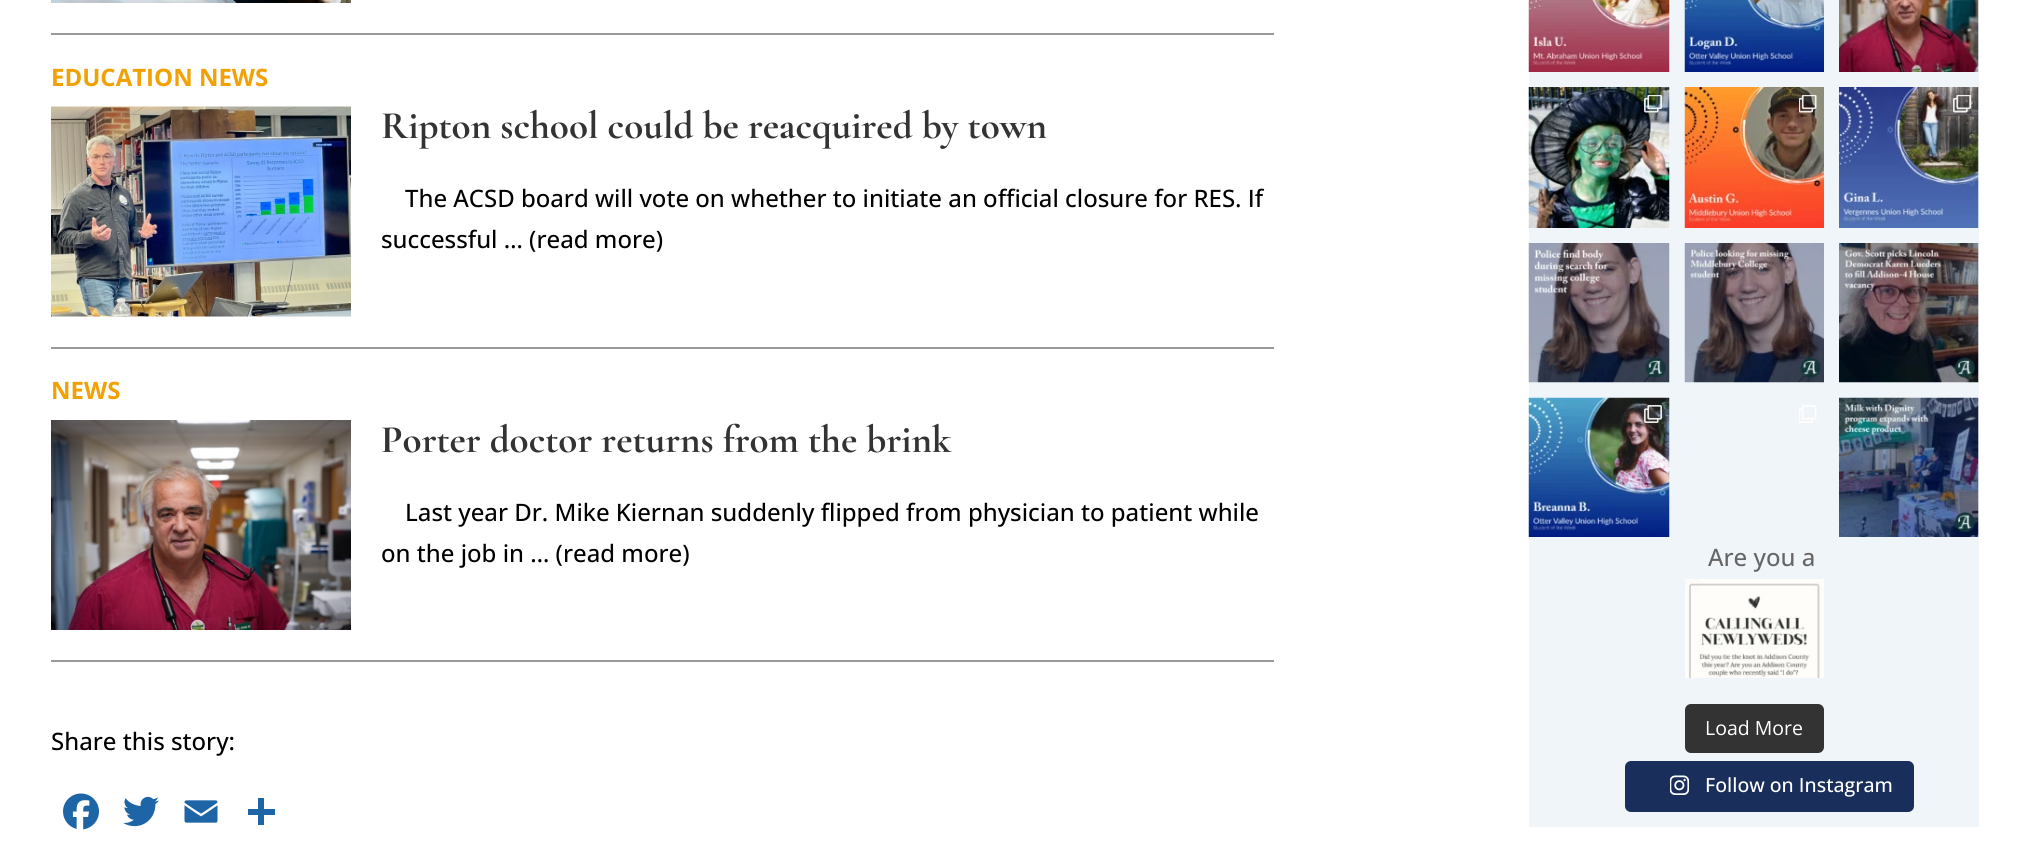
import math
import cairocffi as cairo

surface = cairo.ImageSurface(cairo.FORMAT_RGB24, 2029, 864)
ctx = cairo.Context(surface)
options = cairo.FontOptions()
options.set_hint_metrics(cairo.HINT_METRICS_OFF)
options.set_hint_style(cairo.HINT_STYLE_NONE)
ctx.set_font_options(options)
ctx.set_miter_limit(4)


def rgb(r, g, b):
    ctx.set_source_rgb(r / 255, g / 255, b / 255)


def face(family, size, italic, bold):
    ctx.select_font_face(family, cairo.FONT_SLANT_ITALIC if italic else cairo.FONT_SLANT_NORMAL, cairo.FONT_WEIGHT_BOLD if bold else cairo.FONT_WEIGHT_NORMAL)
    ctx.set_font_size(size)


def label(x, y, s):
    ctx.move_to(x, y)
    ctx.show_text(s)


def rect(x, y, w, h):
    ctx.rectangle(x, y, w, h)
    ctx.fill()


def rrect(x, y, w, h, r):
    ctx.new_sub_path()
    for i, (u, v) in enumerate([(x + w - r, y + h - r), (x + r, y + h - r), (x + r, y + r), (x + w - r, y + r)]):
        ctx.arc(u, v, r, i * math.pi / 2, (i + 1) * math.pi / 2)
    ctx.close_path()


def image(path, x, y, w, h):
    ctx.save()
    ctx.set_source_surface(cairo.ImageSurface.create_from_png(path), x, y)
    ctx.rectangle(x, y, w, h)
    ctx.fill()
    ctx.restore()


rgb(255, 255, 255)
ctx.paint()
rgb(153, 153, 153)
rect(51, 33, 1223, 2)
image('image0.png', 51, 0, 300, 3)
rect(51, 347, 1223, 2)
face('Open Sans', 24, 0, 1)
rgb(241, 161, 4)
label(51, 86, 'EDUCATION NEWS')
image('image1.png', 51, 106, 300, 211)
face('Cormorant Garamond', 39, 0, 1)
rgb(51, 51, 51)
label(381, 138, 'Ripton school could be reacquired by town')
face('Open Sans Medium', 24, 0, 0)
rgb(0, 0, 0)
label(405, 207, 'The ACSD board will vote on whether to initiate an official closure for RES. If')
label(381, 248, 'successful … (read more)')
rgb(153, 153, 153)
rect(51, 660, 1223, 2)
face('Open Sans', 24, 0, 1)
rgb(241, 161, 4)
label(51, 399, 'NEWS')
image('image2.png', 51, 420, 300, 210)
face('Cormorant Garamond', 39, 0, 1)
rgb(51, 51, 51)
label(381, 452, 'Porter doctor returns from the brink')
face('Open Sans Medium', 24, 0, 0)
rgb(0, 0, 0)
label(405, 521, 'Last year Dr. Mike Kiernan suddenly flipped from physician to patient while')
label(381, 562, 'on the job in … (read more)')
label(51, 750, 'Share this story:')
image('image3.png', 63, 793, 36, 37)
image('image4.png', 123, 796, 36, 31)
image('image5.png', 184, 800, 34, 23)
rgb(30, 101, 167)
rect(258, 798, 6, 27)
rect(248, 809, 27, 6)
rgb(240, 245, 250)
rect(1529, 0, 450, 827)
image('image6.png', 1528, 0, 142, 72)
image('image7.png', 1684, 0, 140, 72)
image('image8.png', 1839, 0, 140, 72)
image('image9.png', 1528, 87, 142, 141)
image('image10.png', 1644, 95, 18, 18)
image('image11.png', 1684, 87, 140, 141)
image('image12.png', 1799, 95, 18, 18)
image('image13.png', 1839, 87, 140, 141)
image('image14.png', 1953, 95, 18, 18)
image('image15.png', 1528, 243, 142, 140)
image('image16.png', 1684, 243, 140, 140)
image('image17.png', 1839, 243, 140, 140)
image('image18.png', 1528, 397, 142, 140)
image('image19.png', 1644, 405, 18, 18)
image('image20.png', 1839, 397, 140, 140)
image('image21.png', 1799, 405, 18, 18)
rgb(102, 102, 102)
label(1708, 566, 'Are you a')
image('image22.png', 1685, 579, 139, 99)
rgb(51, 51, 51)
rrect(1685, 704, 139, 49, 6)
ctx.fill()
face('Open Sans', 19.5, 0, 0)
rgb(255, 255, 255)
label(1705, 735, 'Load More')
rgb(25, 46, 91)
rrect(1625, 761, 289, 51, 6)
ctx.fill()
image('image23.png', 1670, 775, 19, 20)
face('Open Sans Medium', 19.5, 0, 0)
rgb(255, 255, 255)
label(1705, 792, 'Follow on Instagram')
surface.write_to_png('render.png')
